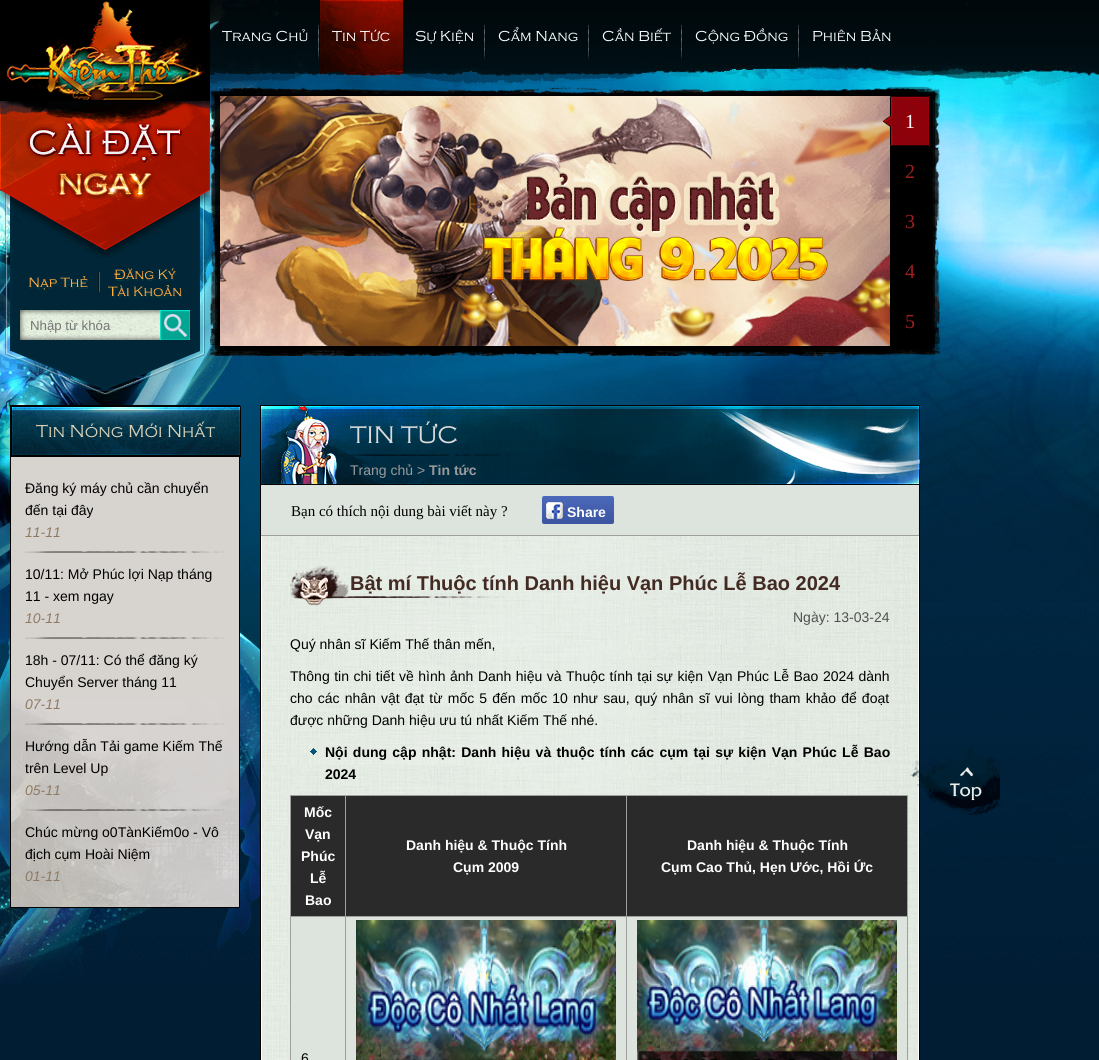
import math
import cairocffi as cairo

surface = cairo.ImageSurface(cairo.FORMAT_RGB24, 1099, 1060)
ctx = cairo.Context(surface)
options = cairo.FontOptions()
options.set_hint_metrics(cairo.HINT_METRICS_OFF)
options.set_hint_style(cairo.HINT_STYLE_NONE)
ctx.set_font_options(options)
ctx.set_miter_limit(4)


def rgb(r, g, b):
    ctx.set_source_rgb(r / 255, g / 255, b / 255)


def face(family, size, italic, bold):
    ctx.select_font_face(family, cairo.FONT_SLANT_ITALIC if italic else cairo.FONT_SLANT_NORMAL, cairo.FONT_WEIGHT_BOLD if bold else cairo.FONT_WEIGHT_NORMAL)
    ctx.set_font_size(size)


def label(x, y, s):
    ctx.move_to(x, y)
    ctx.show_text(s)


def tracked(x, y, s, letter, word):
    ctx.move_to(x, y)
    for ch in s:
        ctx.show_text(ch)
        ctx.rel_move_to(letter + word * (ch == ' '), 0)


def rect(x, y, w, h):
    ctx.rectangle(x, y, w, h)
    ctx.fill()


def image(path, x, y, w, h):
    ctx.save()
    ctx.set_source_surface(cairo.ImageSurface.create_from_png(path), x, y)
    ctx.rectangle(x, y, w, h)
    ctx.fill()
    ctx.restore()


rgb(0, 29, 52)
ctx.paint()
image('image0.png', 0, 0, 1099, 984)
image('image1.png', 5, 350, 200, 45)
image('image2.png', 5, 192, 200, 158)
rgb(0, 0, 0)
rect(0, 0, 210, 100)
image('image3.png', 6, 1, 199, 99)
image('image4.png', 0, 100, 210, 158)
image('image5.png', 29, 272, 70, 20)
image('image6.png', 99, 268, 83, 31)
image('image7.png', 20, 310, 140, 30)
face('Liberation Sans', 13.25, 0, 0)
rgb(117, 117, 117)
label(30, 330, 'Nhập từ khóa')
image('image8.png', 160, 310, 30, 30)
image('image9.png', 318, 24, 2, 38)
face('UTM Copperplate', 15, 0, 0)
rgb(255, 255, 255)
label(222, 41, 'Trang Chủ')
image('image10.png', 401, 24, 2, 38)
image('image11.png', 320, 0, 83, 76)
label(332, 41, 'Tin Tức')
image('image12.png', 484, 24, 2, 38)
label(415, 41, 'Sự Kiện')
image('image13.png', 588, 24, 2, 38)
label(498, 41, 'Cẩm Nang')
image('image14.png', 681, 24, 2, 38)
label(602, 41, 'Cần Biết')
image('image14.png', 798, 24, 2, 38)
label(695, 41, 'Cộng Đồng')
label(812, 41, 'Phiên Bản')
image('image15.png', 210, 86, 730, 270)
image('image16.png', 220, 96, 710, 250)
image('image17.png', 883, 96, 47, 50)
face('Liberation Serif', 20, 0, 0)
label(905, 128, '1')
rgb(0, 0, 0)
rect(890, 146, 40, 200)
rgb(158, 31, 29)
label(905, 178, '2')
label(905, 228, '3')
label(905, 278, '4')
label(905, 328, '5')
rgb(215, 212, 208)
rect(11, 457, 228, 242)
image('image18.png', 11, 699, 228, 208)
ctx.rectangle(10.5, 405.5, 229, 502)
rgb(0, 0, 0)
ctx.set_line_width(1)
ctx.stroke()
image('image19.png', 11, 406, 230, 51)
face('UTM Copperplate', 18, 0, 0)
rgb(216, 209, 184)
label(36, 437, 'Tin Nóng Mới Nhất')
image('image20.png', 25, 551, 200, 2)
face('Liberation Sans', 14, 0, 0)
rgb(0, 0, 0)
label(25, 493, 'Đăng ký máy chủ cần chuyển')
label(25, 515, 'đến tại đây')
face('Liberation Sans', 14, 1, 0)
rgb(143, 122, 98)
label(25, 537, '11-11')
image('image20.png', 25, 637, 200, 2)
face('Liberation Sans', 14, 0, 0)
rgb(0, 0, 0)
label(25, 579, '10/11: Mở Phúc lợi Nạp tháng')
label(25, 601, '11 - xem ngay')
face('Liberation Sans', 14, 1, 0)
rgb(143, 122, 98)
label(25, 623, '10-11')
image('image21.png', 25, 723, 200, 2)
face('Liberation Sans', 14, 0, 0)
rgb(0, 0, 0)
label(25, 665, '18h - 07/11: Có thể đăng ký')
label(25, 687, 'Chuyển Server tháng 11')
face('Liberation Sans', 14, 1, 0)
rgb(143, 122, 98)
label(25, 709, '07-11')
image('image22.png', 25, 809, 200, 2)
face('Liberation Sans', 14, 0, 0)
rgb(0, 0, 0)
label(25, 751, 'Hướng dẫn Tải game Kiếm Thế')
label(25, 773, 'trên Level Up')
face('Liberation Sans', 14, 1, 0)
rgb(143, 122, 98)
label(25, 795, '05-11')
face('Liberation Sans', 14, 0, 0)
rgb(0, 0, 0)
label(25, 837, 'Chúc mừng o0TànKiếm0o - Vô')
label(25, 859, 'địch cụm Hoài Niệm')
face('Liberation Sans', 14, 1, 0)
rgb(143, 122, 98)
label(25, 881, '01-11')
image('image23.png', 260, 485, 660, 575)
image('image24.png', 260, 405, 660, 80)
face('UTM Copperplate', 25, 0, 0)
rgb(219, 219, 219)
label(350, 443, 'TIN TỨC')
face('Liberation Sans', 14, 0, 0)
rgb(154, 154, 154)
label(350, 475, 'Trang chủ >')
face('Liberation Sans', 14, 0, 1)
label(429, 475, 'Tin tức')
rgb(220, 228, 221)
rect(261, 485, 658, 50)
rgb(159, 159, 159)
rect(261, 535, 658, 1)
face('Liberation Serif', 15, 0, 0)
rgb(0, 0, 0)
label(291, 516, 'Bạn có thích nội dung bài viết này ?')
image('image25.png', 542, 496, 72, 28)
image('image26.png', 546, 502, 17, 17)
face('Liberation Sans', 14, 0, 1)
rgb(255, 255, 255)
label(567, 517, 'Share')
image('image27.png', 290, 566, 214, 40)
face('Liberation Sans', 20, 0, 1)
rgb(67, 43, 36)
label(350, 590, 'Bật mí Thuộc tính Danh hiệu Vạn Phúc Lễ Bao 2024')
face('Liberation Sans', 14, 0, 0)
rgb(80, 80, 80)
label(793, 622, 'Ngày: 13-03-24')
rgb(0, 0, 0)
label(290, 649, 'Quý nhân sĩ Kiếm Thế thân mến,')
tracked(290, 681, 'Thông tin chi tiết về hình ảnh Danh hiệu và Thuộc tính tại sự kiện Vạn Phúc Lễ Bao 2024 dành', 0, 0.6)
tracked(290, 703, 'cho các nhân vật đạt từ mốc 5 đến mốc 10 như sau, quý nhân sĩ vui lòng tham khảo để đoạt', 0, 1.25)
label(290, 725, 'được những Danh hiệu ưu tú nhất Kiếm Thế nhé.')
image('image28.png', 310, 748, 7, 7)
face('Liberation Sans', 14, 0, 1)
tracked(325, 757, 'Nội dung cập nhật: Danh hiệu và thuộc tính các cụm tại sự kiện Vạn Phúc Lễ Bao', 0, 1.4)
label(325, 779, '2024')
rgb(42, 42, 42)
rect(291, 796, 54, 120)
rgb(159, 159, 159)
rect(626, 795, 282, 1)
rect(626, 916, 282, 1)
rgb(220, 228, 221)
rect(291, 917, 616, 143)
rgb(159, 159, 159)
rect(626, 916, 1, 144)
rect(345, 916, 282, 1)
rect(626, 795, 1, 122)
rect(345, 795, 282, 1)
rect(345, 916, 1, 144)
rect(290, 916, 56, 1)
rect(345, 795, 1, 122)
rect(290, 795, 56, 1)
rect(290, 916, 1, 144)
rect(290, 795, 1, 122)
rgb(255, 255, 255)
label(304, 817, 'Mốc')
label(305, 839, 'Vạn')
label(301, 861, 'Phúc')
label(310, 883, 'Lễ')
label(305, 905, 'Bao')
rgb(42, 42, 42)
rect(346, 796, 280, 120)
rgb(255, 255, 255)
label(406, 850, 'Danh hiệu & Thuộc Tính')
label(453, 872, 'Cụm 2009')
rgb(42, 42, 42)
rect(627, 796, 280, 120)
rgb(159, 159, 159)
rect(907, 916, 1, 144)
rect(907, 795, 1, 122)
rgb(255, 255, 255)
label(687, 850, 'Danh hiệu & Thuộc Tính')
label(661, 872, 'Cụm Cao Thủ, Hẹn Ước, Hồi Ức')
face('Liberation Sans', 14, 0, 0)
rgb(0, 0, 0)
label(301, 1063, '6')
image('image29.png', 356, 920, 260, 140)
image('image30.png', 637, 920, 260, 140)
image('image31.png', 910, 746, 90, 69)
surface.write_to_png('render.png')
